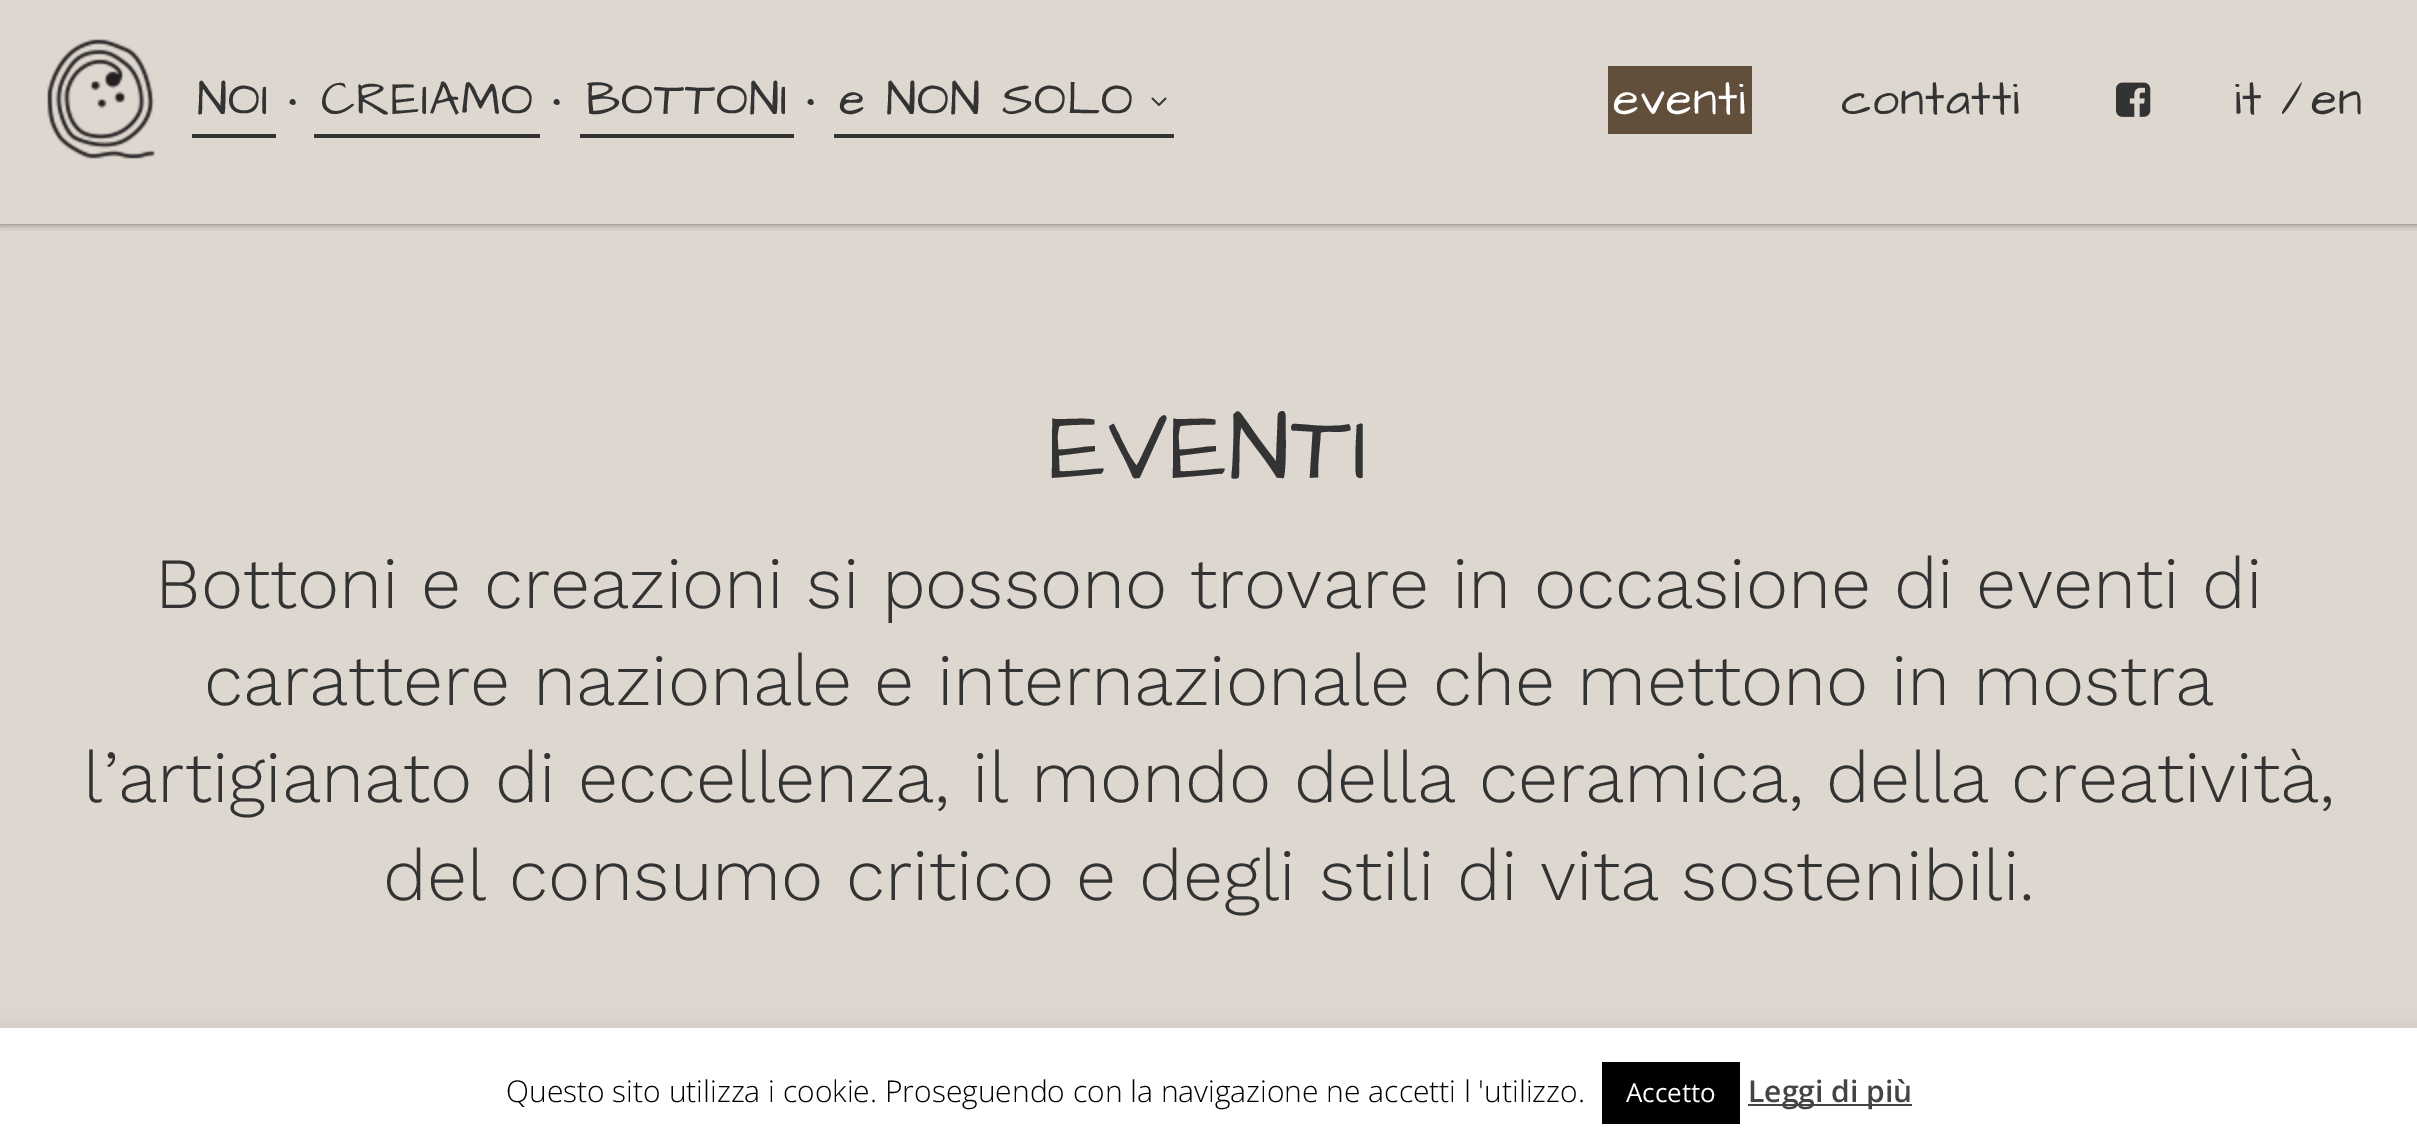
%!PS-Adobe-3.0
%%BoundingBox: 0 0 2417 1148
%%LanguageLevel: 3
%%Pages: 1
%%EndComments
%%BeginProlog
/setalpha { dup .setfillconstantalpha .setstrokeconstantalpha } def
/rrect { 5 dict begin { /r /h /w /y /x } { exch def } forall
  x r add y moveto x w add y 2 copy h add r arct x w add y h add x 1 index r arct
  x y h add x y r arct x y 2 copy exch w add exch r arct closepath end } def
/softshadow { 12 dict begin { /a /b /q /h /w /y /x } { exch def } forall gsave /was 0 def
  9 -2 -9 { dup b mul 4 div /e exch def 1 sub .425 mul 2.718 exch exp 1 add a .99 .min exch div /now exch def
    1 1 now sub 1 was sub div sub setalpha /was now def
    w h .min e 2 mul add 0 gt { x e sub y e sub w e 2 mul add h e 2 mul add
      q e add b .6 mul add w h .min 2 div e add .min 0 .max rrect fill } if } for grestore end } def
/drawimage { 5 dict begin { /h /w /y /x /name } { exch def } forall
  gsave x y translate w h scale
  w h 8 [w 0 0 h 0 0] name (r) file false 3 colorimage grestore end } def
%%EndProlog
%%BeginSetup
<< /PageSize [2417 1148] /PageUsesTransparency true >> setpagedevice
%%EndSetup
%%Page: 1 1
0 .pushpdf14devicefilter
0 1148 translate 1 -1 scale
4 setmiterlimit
0.871 0.843 0.812 setrgbcolor
0 0 2417 1148 rectfill
gsave
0 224 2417 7 rectclip
0 setgray
0 0 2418 224 0 4 0.5 softshadow
grestore
(images/1.raw) 47 39 108 120 drawimage
0.2 setgray
192 134 84 4 rectfill
314 134 226 4 rectfill
580 134 214 4 rectfill
834 134 340 4 rectfill
(images/2.raw) 1151 97 16 9 drawimage
0.38 0.31 0.235 setrgbcolor
1608 66 144 68 rectfill
(images/3.raw) 2116 82 35 35 drawimage
0.675 0.671 0.671 setrgbcolor
0 1026 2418 120 0 10 0.3 softshadow
1 setgray
0 1028 2417 120 rectfill
0 setgray
1602 1062 138 62 rectfill
0.267 setgray
1748 1104 164 2 rectfill
/ArchitectsDaughter-Regular [48 0 0 -48 0 0] selectfont
0.2 setgray
197 114 moveto 1 0 (NOI) ashow
288 114 moveto 10 0 (•) ashow
321 114 moveto 1 0 (CREIAMO) ashow
552 114 moveto 10 0 (•) ashow
586 114 moveto 1 0 (BOTTONI) ashow
806 114 moveto 10 0 (•) ashow
839 114 moveto 1 0 (e NON SOLO) ashow
1 setgray
1613 114 moveto 1 0 (eventi) ashow
0.2 setgray
1841 114 moveto 1 0 (contatti) ashow
2234 114 moveto 1 0 (it) ashow
2281 114 moveto (/) show
2311 114 moveto 1 0 (en) ashow
/ArchitectsDaughter-Regular [96 0 0 -96 0 0] selectfont
1049 478 moveto 2 0 (EVENTI) ashow
/WorkSans-Light [72 0 0 -72 0 0] selectfont
155 608 moveto (Bottoni e creazioni si possono trovare in occasione di eventi di) show
204 705 moveto (carattere nazionale e internazionale che mettono in mostra) show
83 802 moveto (l’artigianato di eccellenza, il mondo della ceramica, della creatività,) show
383 900 moveto (del consumo critico e degli stili di vita sostenibili.) show
/OpenSans-Light [30 0 0 -30 0 0] selectfont
0 setgray
506 1102 moveto (Questo sito utilizza i cookie. Proseguendo con la navigazione ne accetti l 'utilizzo.) show
/OpenSans-Regular [26 0 0 -26 0 0] selectfont
1 setgray
1626 1102 moveto (Accetto) show
/OpenSans-SemiBold [30 0 0 -30 0 0] selectfont
0.267 setgray
1748 1102 moveto (Leggi di più) show
.poppdf14devicefilter showpage
%%EOF
